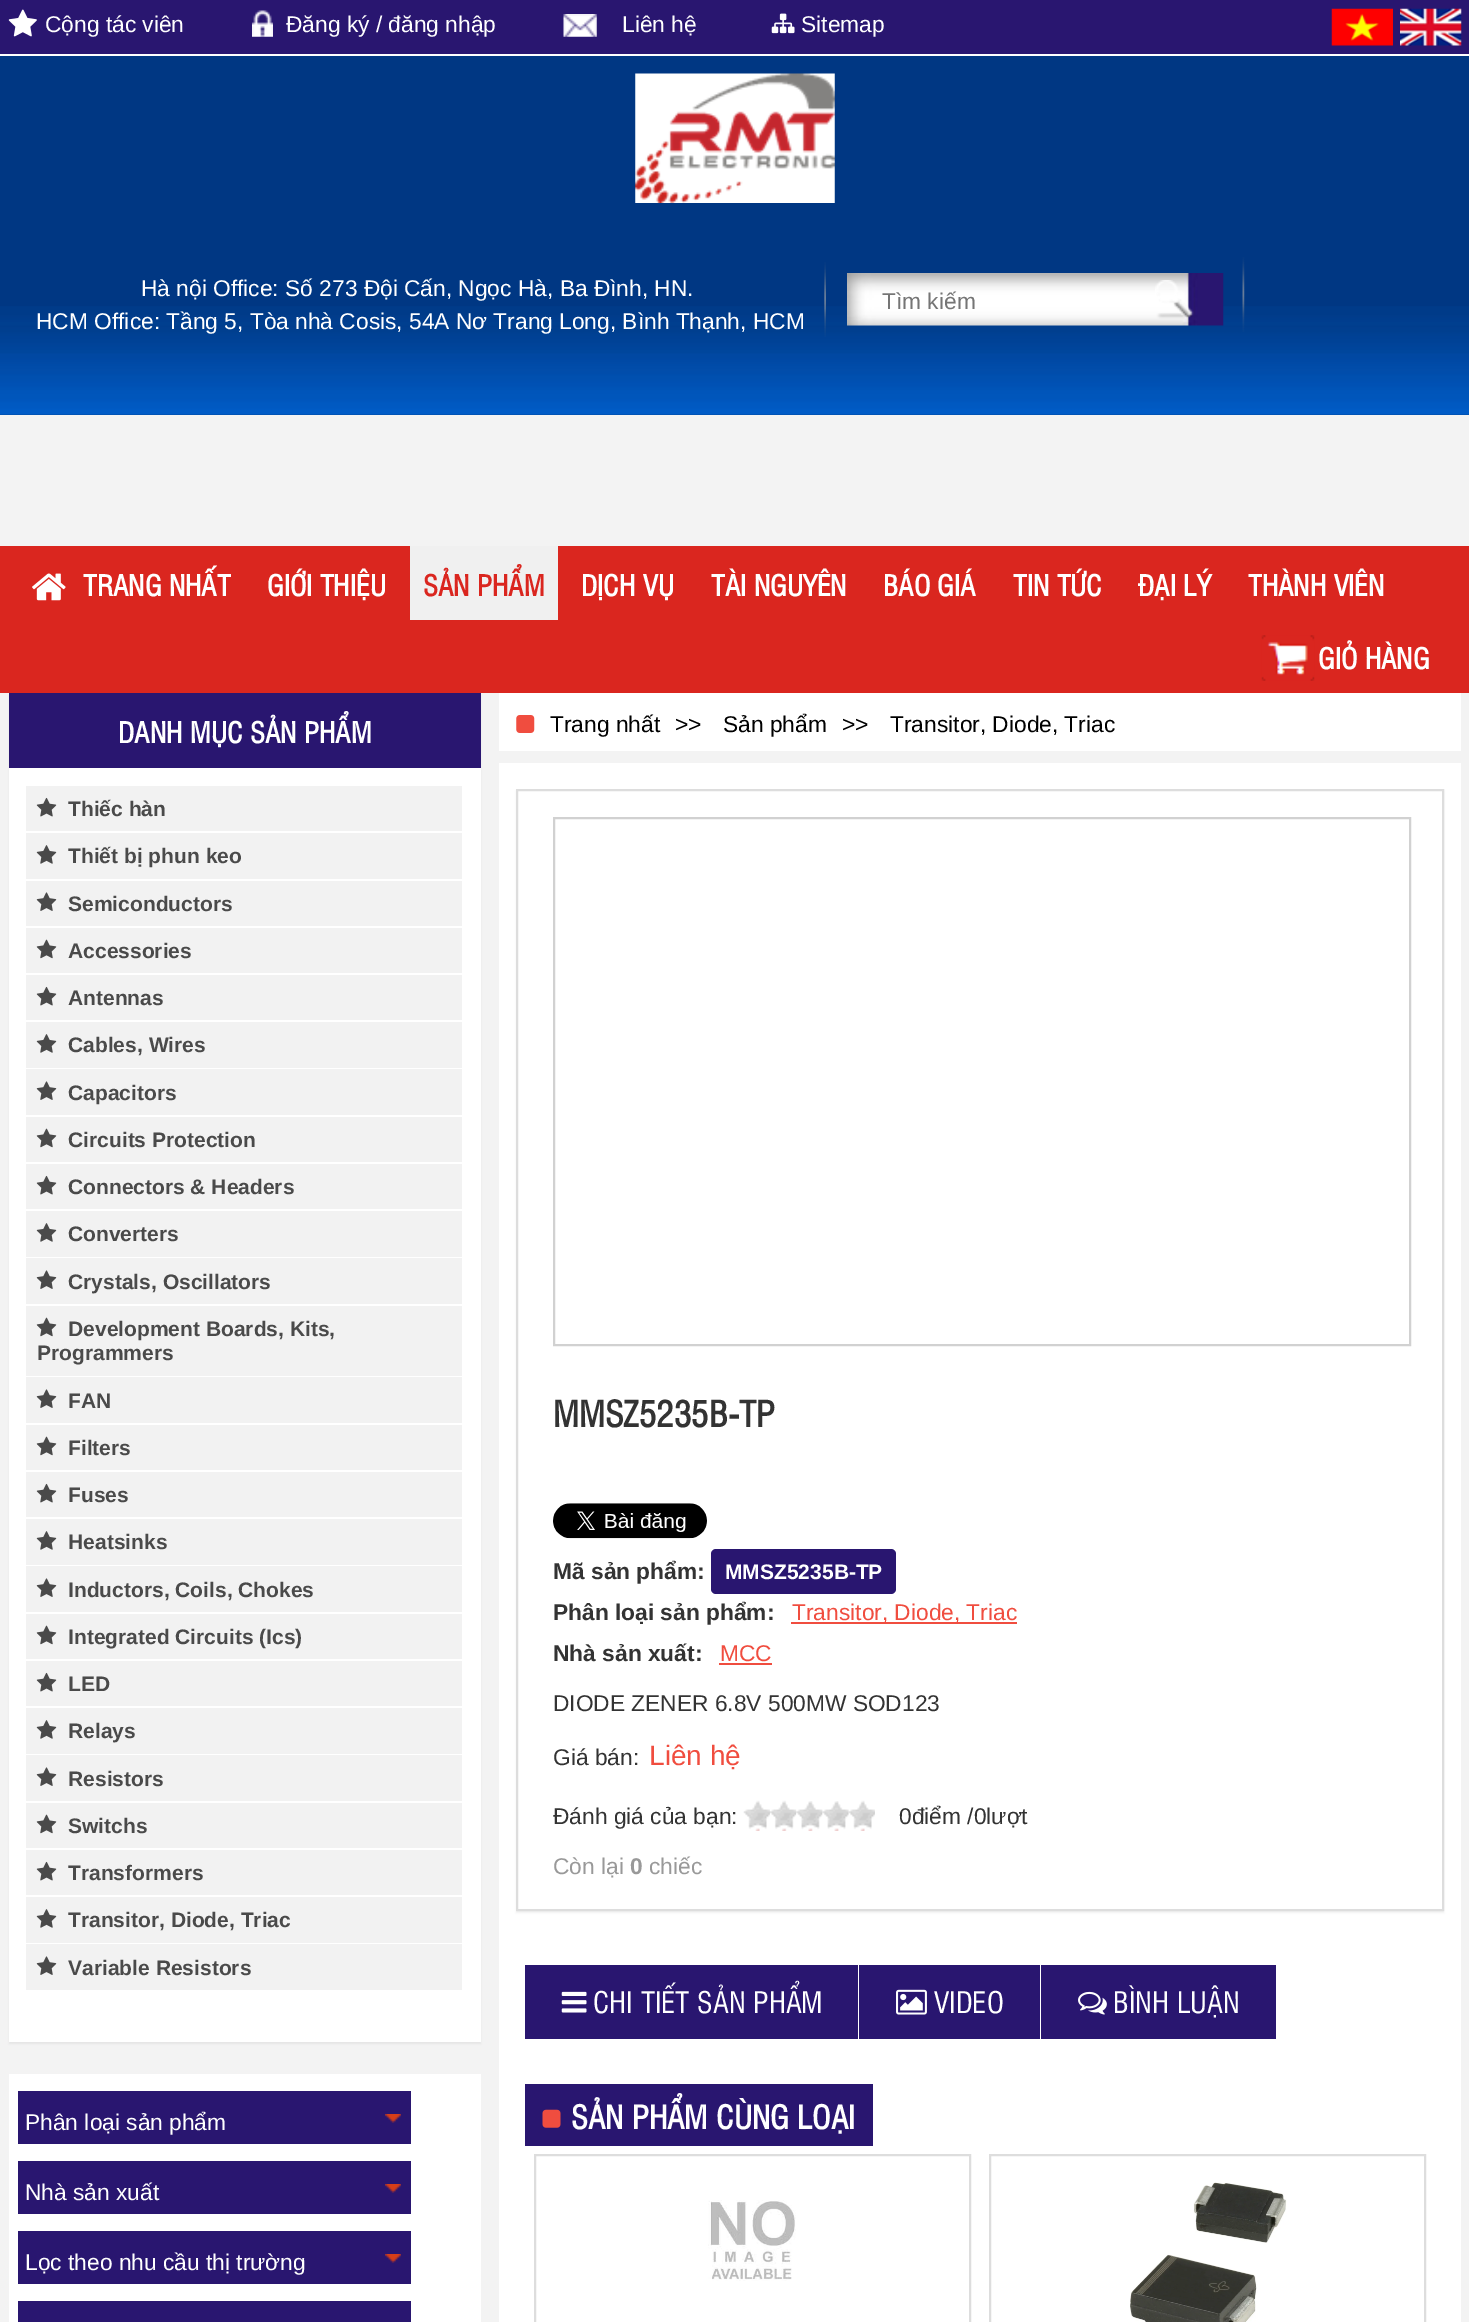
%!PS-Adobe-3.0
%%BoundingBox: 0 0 1469 2322
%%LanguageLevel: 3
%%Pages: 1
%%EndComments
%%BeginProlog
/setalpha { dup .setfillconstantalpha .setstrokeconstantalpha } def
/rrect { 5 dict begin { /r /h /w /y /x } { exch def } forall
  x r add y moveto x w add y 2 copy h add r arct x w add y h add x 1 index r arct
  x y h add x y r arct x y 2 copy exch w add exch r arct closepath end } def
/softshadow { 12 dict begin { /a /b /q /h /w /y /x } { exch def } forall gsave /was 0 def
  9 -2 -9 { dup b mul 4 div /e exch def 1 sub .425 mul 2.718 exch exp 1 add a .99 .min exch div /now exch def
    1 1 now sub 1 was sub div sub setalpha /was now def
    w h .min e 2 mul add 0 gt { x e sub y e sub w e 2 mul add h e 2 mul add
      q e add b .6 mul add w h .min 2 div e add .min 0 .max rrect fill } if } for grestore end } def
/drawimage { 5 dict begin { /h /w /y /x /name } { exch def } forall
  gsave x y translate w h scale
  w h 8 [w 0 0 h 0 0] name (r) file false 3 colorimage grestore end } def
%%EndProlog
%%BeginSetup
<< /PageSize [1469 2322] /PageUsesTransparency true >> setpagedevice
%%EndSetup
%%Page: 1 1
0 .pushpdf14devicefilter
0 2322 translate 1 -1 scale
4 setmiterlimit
0.953 setgray
0 0 1469 2322 rectfill
0.161 0.086 0.439 setrgbcolor
0 0 1469 54 rectfill
1 setgray
0 54 1469 2 rectfill
(images/1.raw) 8 9 29 28 drawimage
(images/2.raw) 252 10 21 27 drawimage
(images/3.raw) 563 14 34 23 drawimage
(images/4.raw) 771 13 24 21 drawimage
(images/5.raw) 1331 8 62 38 drawimage
(images/6.raw) 1400 8 62 38 drawimage
0 0.216 0.514 setrgbcolor
0 56 1469 359 rectfill
(images/7.raw) 0 306 1469 109 drawimage
(images/8.raw) 635 73 200 130 drawimage
(images/9.raw) 824 262 2 75 drawimage
(images/10.raw) 1242 257 3 75 drawimage
(images/11.raw) 847 273 377 53 drawimage
(images/12.raw) 1155 280 39 39 drawimage
0.855 0.149 0.122 setrgbcolor
0 546 1469 147 rectfill
(images/13.raw) 32 573 34 28 drawimage
0.941 setgray
410 546 148 74 rectfill
(images/14.raw) 1261 635 54 46 drawimage
0 setgray
9 695 472 1349 0 1 0.05 softshadow
1 setgray
9 768 472 1274 rectfill
0.161 0.086 0.439 setrgbcolor
9 693 472 75 rectfill
0.949 setgray
26 786 436 45 rectfill
(images/15.raw) 36 797 21 20 drawimage
26 833 436 46 rectfill
(images/16.raw) 36 845 21 19 drawimage
26 881 436 45 rectfill
(images/17.raw) 36 892 21 19 drawimage
26 928 436 45 rectfill
(images/18.raw) 36 939 21 20 drawimage
26 975 436 45 rectfill
(images/15.raw) 36 986 21 20 drawimage
26 1022 436 46 rectfill
(images/16.raw) 36 1034 21 19 drawimage
26 1069 436 46 rectfill
(images/17.raw) 36 1081 21 19 drawimage
26 1117 436 45 rectfill
(images/18.raw) 36 1128 21 20 drawimage
26 1164 436 45 rectfill
(images/15.raw) 36 1175 21 20 drawimage
26 1211 436 46 rectfill
(images/16.raw) 36 1223 21 19 drawimage
26 1258 436 46 rectfill
(images/17.raw) 36 1270 21 19 drawimage
26 1306 436 70 rectfill
(images/18.raw) 36 1317 21 20 drawimage
26 1377 436 46 rectfill
(images/17.raw) 36 1389 21 19 drawimage
26 1425 436 45 rectfill
(images/18.raw) 36 1436 21 20 drawimage
26 1472 436 45 rectfill
(images/15.raw) 36 1483 21 20 drawimage
26 1519 436 46 rectfill
(images/16.raw) 36 1531 21 19 drawimage
26 1566 436 46 rectfill
(images/17.raw) 36 1578 21 19 drawimage
26 1614 436 45 rectfill
(images/18.raw) 36 1625 21 20 drawimage
26 1661 436 45 rectfill
(images/15.raw) 36 1672 21 20 drawimage
26 1708 436 46 rectfill
(images/16.raw) 36 1720 21 19 drawimage
26 1755 436 46 rectfill
(images/17.raw) 36 1767 21 19 drawimage
26 1803 436 45 rectfill
(images/18.raw) 36 1814 21 20 drawimage
26 1850 436 45 rectfill
(images/15.raw) 36 1861 21 20 drawimage
26 1897 436 46 rectfill
(images/16.raw) 36 1909 21 19 drawimage
26 1944 436 46 rectfill
(images/17.raw) 36 1956 21 19 drawimage
1 setgray
9 2074 472 248 rectfill
0.161 0.086 0.439 setrgbcolor
18 2091 393 53 rectfill
(images/19.raw) 385 2114 16 9 drawimage
18 2161 393 53 rectfill
(images/19.raw) 385 2184 16 9 drawimage
18 2231 393 53 rectfill
(images/19.raw) 385 2254 16 9 drawimage
18 2301 393 21 rectfill
1 setgray
499 693 962 58 rectfill
(images/20.raw) 516 715 19 18 drawimage
499 763 962 1559 rectfill
0 setgray
516 791 928 1122 0 1 0.05 softshadow
1 setgray
newpath 517 790 moveto 1443 790 lineto 1443 1910 lineto 517 1910 lineto closepath gsave fill grestore
0.867 setgray
2 setlinewidth
stroke
0.82 setgray
554 818 856 527 rectstroke
(images/21.raw) 553 1503 154 36 drawimage
0.161 0.086 0.439 setrgbcolor
711 1549 185 45 5 rrect fill
0.941 0.302 0.247 setrgbcolor
791 1622 226 2 rectfill
719 1663 53 2 rectfill
(images/22.raw) 743 1800 27 31 drawimage
(images/23.raw) 770 1800 27 31 drawimage
(images/24.raw) 796 1801 27 30 drawimage
(images/25.raw) 822 1801 27 30 drawimage
(images/26.raw) 849 1800 26 31 drawimage
0.161 0.086 0.439 setrgbcolor
525 1965 333 74 rectfill
(images/27.raw) 561 1991 26 22 drawimage
859 1965 181 74 rectfill
(images/28.raw) 896 1989 31 26 drawimage
1041 1965 235 74 rectfill
(images/29.raw) 1078 1991 29 24 drawimage
525 2084 348 62 rectfill
(images/30.raw) 542 2109 19 19 drawimage
0.867 setgray
535 2155 435 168 rectstroke
(images/31.raw) 708 2200 88 81 drawimage
990 2155 435 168 rectstroke
(images/32.raw) 1130 2182 157 140 drawimage
/LiberationSans-Regular [22.75 0 0 -22.75 0 0] selectfont
1 setgray
45 32 moveto (Cộng tác viên) show
286 32 moveto (Đăng ký / đăng nhập) show
622 32 moveto (Liên hệ) show
801 32 moveto (Sitemap) show
141 296 moveto (Hà nội Office: Số 273 Đội Cấn, Ngọc Hà, Ba Đình, HN.) show
36 329 moveto (HCM Office: Tầng 5, Tòa nhà Cosis, 54A Nơ Trang Long, Bình Thạnh, HCM) show
0.459 setgray
882 309 moveto (Tìm kiếm) show
/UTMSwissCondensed-Bold [28 0 0 -28 0 0] selectfont
1 setgray
83 596 moveto (TRANG NHẤT) show
267 596 moveto (GIỚI THIỆU) show
0.855 0.149 0.122 setrgbcolor
423 596 moveto (SẢN PHẨM) show
1 setgray
581 596 moveto (DỊCH VỤ) show
711 596 moveto (TÀI NGUYÊN) show
883 596 moveto (BÁO GIÁ) show
1013 596 moveto (TIN TỨC) show
1138 596 moveto (ĐẠI LÝ) show
1248 596 moveto (THÀNH VIÊN) show
1318 669 moveto (GIỎ HÀNG) show
118 743 moveto (DANH MỤC SẢN PHẨM) show
/LiberationSans-Bold [21 0 0 -21 0 0] selectfont
0.29 setgray
68 816 moveto (Thiếc hàn) show
68 863 moveto (Thiết bị phun keo) show
68 911 moveto (Semiconductors) show
68 958 moveto (Accessories) show
68 1005 moveto (Antennas) show
68 1052 moveto (Cables, Wires) show
68 1100 moveto (Capacitors) show
68 1147 moveto (Circuits Protection) show
68 1194 moveto (Connectors & Headers) show
68 1241 moveto (Converters) show
68 1289 moveto (Crystals, Oscillators) show
68 1336 moveto (Development Boards, Kits,) show
37 1360 moveto (Programmers) show
68 1408 moveto (FAN) show
68 1455 moveto (Filters) show
68 1502 moveto (Fuses) show
68 1549 moveto (Heatsinks) show
68 1597 moveto (Inductors, Coils, Chokes) show
68 1644 moveto (Integrated Circuits \(Ics\)) show
68 1691 moveto (LED) show
68 1738 moveto (Relays) show
68 1786 moveto (Resistors) show
68 1833 moveto (Switchs) show
68 1880 moveto (Transformers) show
68 1927 moveto (Transitor, Diode, Triac) show
68 1975 moveto (Variable Resistors) show
/LiberationSans-Regular [22.75 0 0 -22.75 0 0] selectfont
1 setgray
25 2130 moveto (Phân loại sản phẩm) show
25 2200 moveto (Nhà sản xuất) show
25 2270 moveto (Lọc theo nhu cầu thị trường) show
0 setgray
550 732 moveto (Trang nhất) show
675 732 moveto (>>) show
723 732 moveto (Sản phẩm) show
842 732 moveto (>>) show
890 732 moveto (Transitor, Diode, Triac) show
/UTMSwissCondensed-Bold [35 0 0 -35 0 0] selectfont
0.2 setgray
553 1427 moveto (MMSZ5235B-TP) show
/LiberationSans-Bold [22.75 0 0 -22.75 0 0] selectfont
553 1579 moveto (Mã sản phẩm:) show
/LiberationSans-Bold [21 0 0 -21 0 0] selectfont
1 setgray
725 1579 moveto (MMSZ5235B-TP) show
/LiberationSans-Bold [22.75 0 0 -22.75 0 0] selectfont
0.2 setgray
553 1620 moveto (Phân loại sản phẩm:) show
/LiberationSans-Regular [22.75 0 0 -22.75 0 0] selectfont
0.941 0.302 0.247 setrgbcolor
792 1620 moveto (Transitor, Diode, Triac) show
/LiberationSans-Bold [22.75 0 0 -22.75 0 0] selectfont
0.2 setgray
553 1661 moveto (Nhà sản xuất:) show
/LiberationSans-Regular [22.75 0 0 -22.75 0 0] selectfont
0.941 0.302 0.247 setrgbcolor
720 1661 moveto (MCC) show
0.2 setgray
553 1711 moveto (DIODE ZENER 6.8V 500MW SOD123) show
553 1765 moveto (Giá bán:) show
/LiberationSans-Regular [28 0 0 -28 0 0] selectfont
0.941 0.302 0.247 setrgbcolor
649 1765 moveto (Liên hệ) show
/LiberationSans-Regular [22.75 0 0 -22.75 0 0] selectfont
0.2 setgray
553 1824 moveto (Đánh giá của bạn:) show
899 1824 moveto (0điểm /0lượt) show
0.6 setgray
553 1874 moveto (Còn lại) show
/LiberationSans-Bold [22.75 0 0 -22.75 0 0] selectfont
630 1874 moveto (0) show
/LiberationSans-Regular [22.75 0 0 -22.75 0 0] selectfont
649 1874 moveto (chiếc) show
/UTMSwissCondensed-Regular [29 0 0 -29 0 0] selectfont
1 setgray
593 2013 moveto (CHI TIẾT SẢN PHẨM) show
934 2013 moveto (VIDEO) show
1113 2013 moveto (BÌNH LUẬN) show
/UTMSwissCondensed-Bold [31.5 0 0 -31.5 0 0] selectfont
571 2129 moveto (SẢN PHẨM CÙNG LOẠI) show
.poppdf14devicefilter showpage
%%EOF
